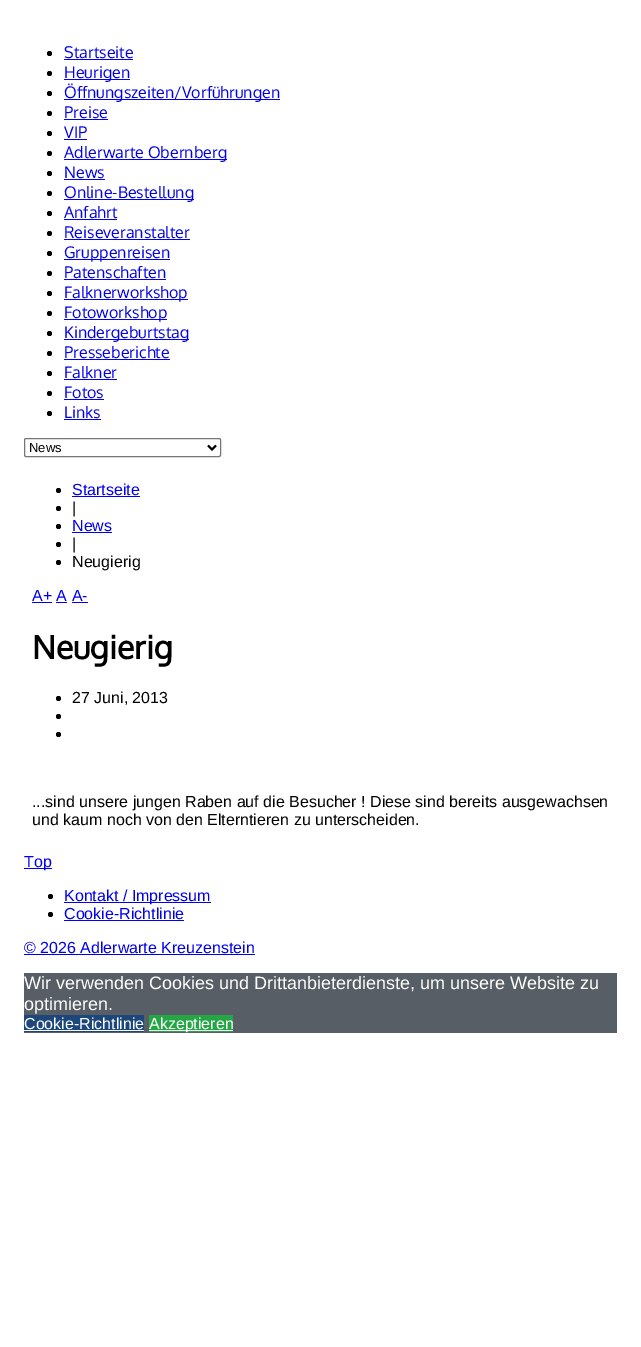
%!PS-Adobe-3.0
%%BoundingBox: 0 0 641 1347
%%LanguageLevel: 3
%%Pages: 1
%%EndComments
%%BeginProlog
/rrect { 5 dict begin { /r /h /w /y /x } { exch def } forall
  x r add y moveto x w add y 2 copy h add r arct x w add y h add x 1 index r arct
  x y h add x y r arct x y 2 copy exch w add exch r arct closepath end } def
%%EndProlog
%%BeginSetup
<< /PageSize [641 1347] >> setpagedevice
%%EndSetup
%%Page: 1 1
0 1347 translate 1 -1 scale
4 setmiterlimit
1 setgray
0 0 641 1347 rectfill
0 setgray
newpath 49.5 53.5 2.5 0 360 arc closepath fill
0 0 0.933 setrgbcolor
64 59 69 1 rectfill
0 setgray
newpath 49.5 73.5 2.5 0 360 arc closepath fill
0 0 0.933 setrgbcolor
64 79 66 1 rectfill
0 setgray
newpath 49.5 93.5 2.5 0 360 arc closepath fill
0 0 0.933 setrgbcolor
64 99 216 1 rectfill
0 setgray
newpath 49.5 113.5 2.5 0 360 arc closepath fill
0 0 0.933 setrgbcolor
64 119 44 1 rectfill
0 setgray
newpath 49.5 133.5 2.5 0 360 arc closepath fill
0 0 0.933 setrgbcolor
64 139 23 1 rectfill
0 setgray
newpath 49.5 153.5 2.5 0 360 arc closepath fill
0 0 0.933 setrgbcolor
64 159 163 1 rectfill
0 setgray
newpath 49.5 173.5 2.5 0 360 arc closepath fill
0 0 0.933 setrgbcolor
64 179 41 1 rectfill
0 setgray
newpath 49.5 193.5 2.5 0 360 arc closepath fill
0 0 0.933 setrgbcolor
64 199 130 1 rectfill
0 setgray
newpath 49.5 213.5 2.5 0 360 arc closepath fill
0 0 0.933 setrgbcolor
64 219 53 1 rectfill
0 setgray
newpath 49.5 233.5 2.5 0 360 arc closepath fill
0 0 0.933 setrgbcolor
64 239 126 1 rectfill
0 setgray
newpath 49.5 253.5 2.5 0 360 arc closepath fill
0 0 0.933 setrgbcolor
64 259 106 1 rectfill
0 setgray
newpath 49.5 273.5 2.5 0 360 arc closepath fill
0 0 0.933 setrgbcolor
64 279 102 1 rectfill
0 setgray
newpath 49.5 293.5 2.5 0 360 arc closepath fill
0 0 0.933 setrgbcolor
64 299 124 1 rectfill
0 setgray
newpath 49.5 313.5 2.5 0 360 arc closepath fill
0 0 0.933 setrgbcolor
64 319 103 1 rectfill
0 setgray
newpath 49.5 333.5 2.5 0 360 arc closepath fill
0 0 0.933 setrgbcolor
64 339 125 1 rectfill
0 setgray
newpath 49.5 353.5 2.5 0 360 arc closepath fill
0 0 0.933 setrgbcolor
64 359 106 1 rectfill
0 setgray
newpath 49.5 373.5 2.5 0 360 arc closepath fill
0 0 0.933 setrgbcolor
64 379 53 1 rectfill
0 setgray
newpath 49.5 393.5 2.5 0 360 arc closepath fill
0 0 0.933 setrgbcolor
64 399 40 1 rectfill
0 setgray
newpath 49.5 413.5 2.5 0 360 arc closepath fill
0 0 0.933 setrgbcolor
64 419 37 1 rectfill
0.463 setgray
24.5 438.5 196 18 1.5 rrect stroke
0 setgray
2 setlinewidth
newpath 208 445.5 moveto 212 449.5 lineto 216 445.5 lineto stroke
newpath 58.5 490.5 2.5 0 360 arc closepath fill
0 0 0.933 setrgbcolor
72 496 68 1 rectfill
0 setgray
newpath 58.5 508.5 2.5 0 360 arc closepath fill
newpath 58.5 526.5 2.5 0 360 arc closepath fill
0 0 0.933 setrgbcolor
72 532 40 1 rectfill
0 setgray
newpath 58.5 544.5 2.5 0 360 arc closepath fill
newpath 58.5 562.5 2.5 0 360 arc closepath fill
0 0 0.933 setrgbcolor
32 602 20 1 rectfill
56 602 11 1 rectfill
72 602 16 1 rectfill
0 setgray
newpath 58.5 698.5 2.5 0 360 arc closepath fill
newpath 58.5 716.5 2.5 0 360 arc closepath fill
newpath 58.5 734.5 2.5 0 360 arc closepath fill
0 0 0.933 setrgbcolor
24 868 28 1 rectfill
0 setgray
newpath 50.5 896.5 2.5 0 360 arc closepath fill
0 0 0.933 setrgbcolor
64 902 147 1 rectfill
0 setgray
newpath 50.5 914.5 2.5 0 360 arc closepath fill
0 0 0.933 setrgbcolor
64 920 120 1 rectfill
24 954 231 1 rectfill
0.341 0.369 0.4 setrgbcolor
24 973 593 60 rectfill
0.114 0.275 0.478 setrgbcolor
24 1015 120 17 rectfill
1 setgray
24 1030 120 1 rectfill
0.141 0.651 0.271 setrgbcolor
149 1015 84 17 rectfill
1 setgray
149 1030 84 1 rectfill
/Oxygen-Regular [16 0 0 -16 0 0] selectfont
0 0 0.933 setrgbcolor
64 58 moveto (Startseite) show
64 78 moveto (Heurigen) show
64 98 moveto (Öffnungszeiten/Vorführungen) show
64 118 moveto (Preise) show
64 138 moveto (VIP) show
64 158 moveto (Adlerwarte Obernberg) show
64 178 moveto (News) show
64 198 moveto (Online-Bestellung) show
64 218 moveto (Anfahrt) show
64 238 moveto (Reiseveranstalter) show
64 258 moveto (Gruppenreisen) show
64 278 moveto (Patenschaften) show
64 298 moveto (Falknerworkshop) show
64 318 moveto (Fotoworkshop) show
64 338 moveto (Kindergeburtstag) show
64 358 moveto (Presseberichte) show
64 378 moveto (Falkner) show
64 398 moveto (Fotos) show
64 418 moveto (Links) show
/LiberationSans-Regular [13 0 0 -13 0 0] selectfont
0 setgray
29 452 moveto (News) show
/LiberationSans-Regular [16 0 0 -16 0 0] selectfont
0 0 0.933 setrgbcolor
72 495 moveto (Startseite) show
0 setgray
72 513 moveto (|) show
0 0 0.933 setrgbcolor
72 531 moveto (News) show
0 setgray
72 549 moveto (|) show
72 567 moveto (Neugierig) show
0 0 0.933 setrgbcolor
32 601 moveto (A+ A A-) show
/Oxygen-Bold [32 0 0 -32 0 0] selectfont
0 setgray
32 659 moveto (Neugierig) show
/LiberationSans-Regular [16 0 0 -16 0 0] selectfont
72 703 moveto (27 Juni, 2013) show
32 807 moveto (...sind unsere jungen Raben auf die Besucher ! Diese sind bereits ausgewachsen) show
32 825 moveto (und kaum noch von den Elterntieren zu unterscheiden.) show
0 0 0.933 setrgbcolor
24 867 moveto (Top) show
64 901 moveto (Kontakt / Impressum) show
64 919 moveto (Cookie-Richtlinie) show
24 953 moveto (© 2026 Adlerwarte Kreuzenstein) show
/LiberationSans-Regular [18 0 0 -18 0 0] selectfont
1 setgray
24 989 moveto (Wir verwenden Cookies und Drittanbieterdienste, um unsere Website zu) show
24 1010 moveto (optimieren.) show
/LiberationSans-Regular [16 0 0 -16 0 0] selectfont
24 1029 moveto (Cookie-Richtlinie) show
149 1029 moveto (Akzeptieren) show
showpage
%%EOF
